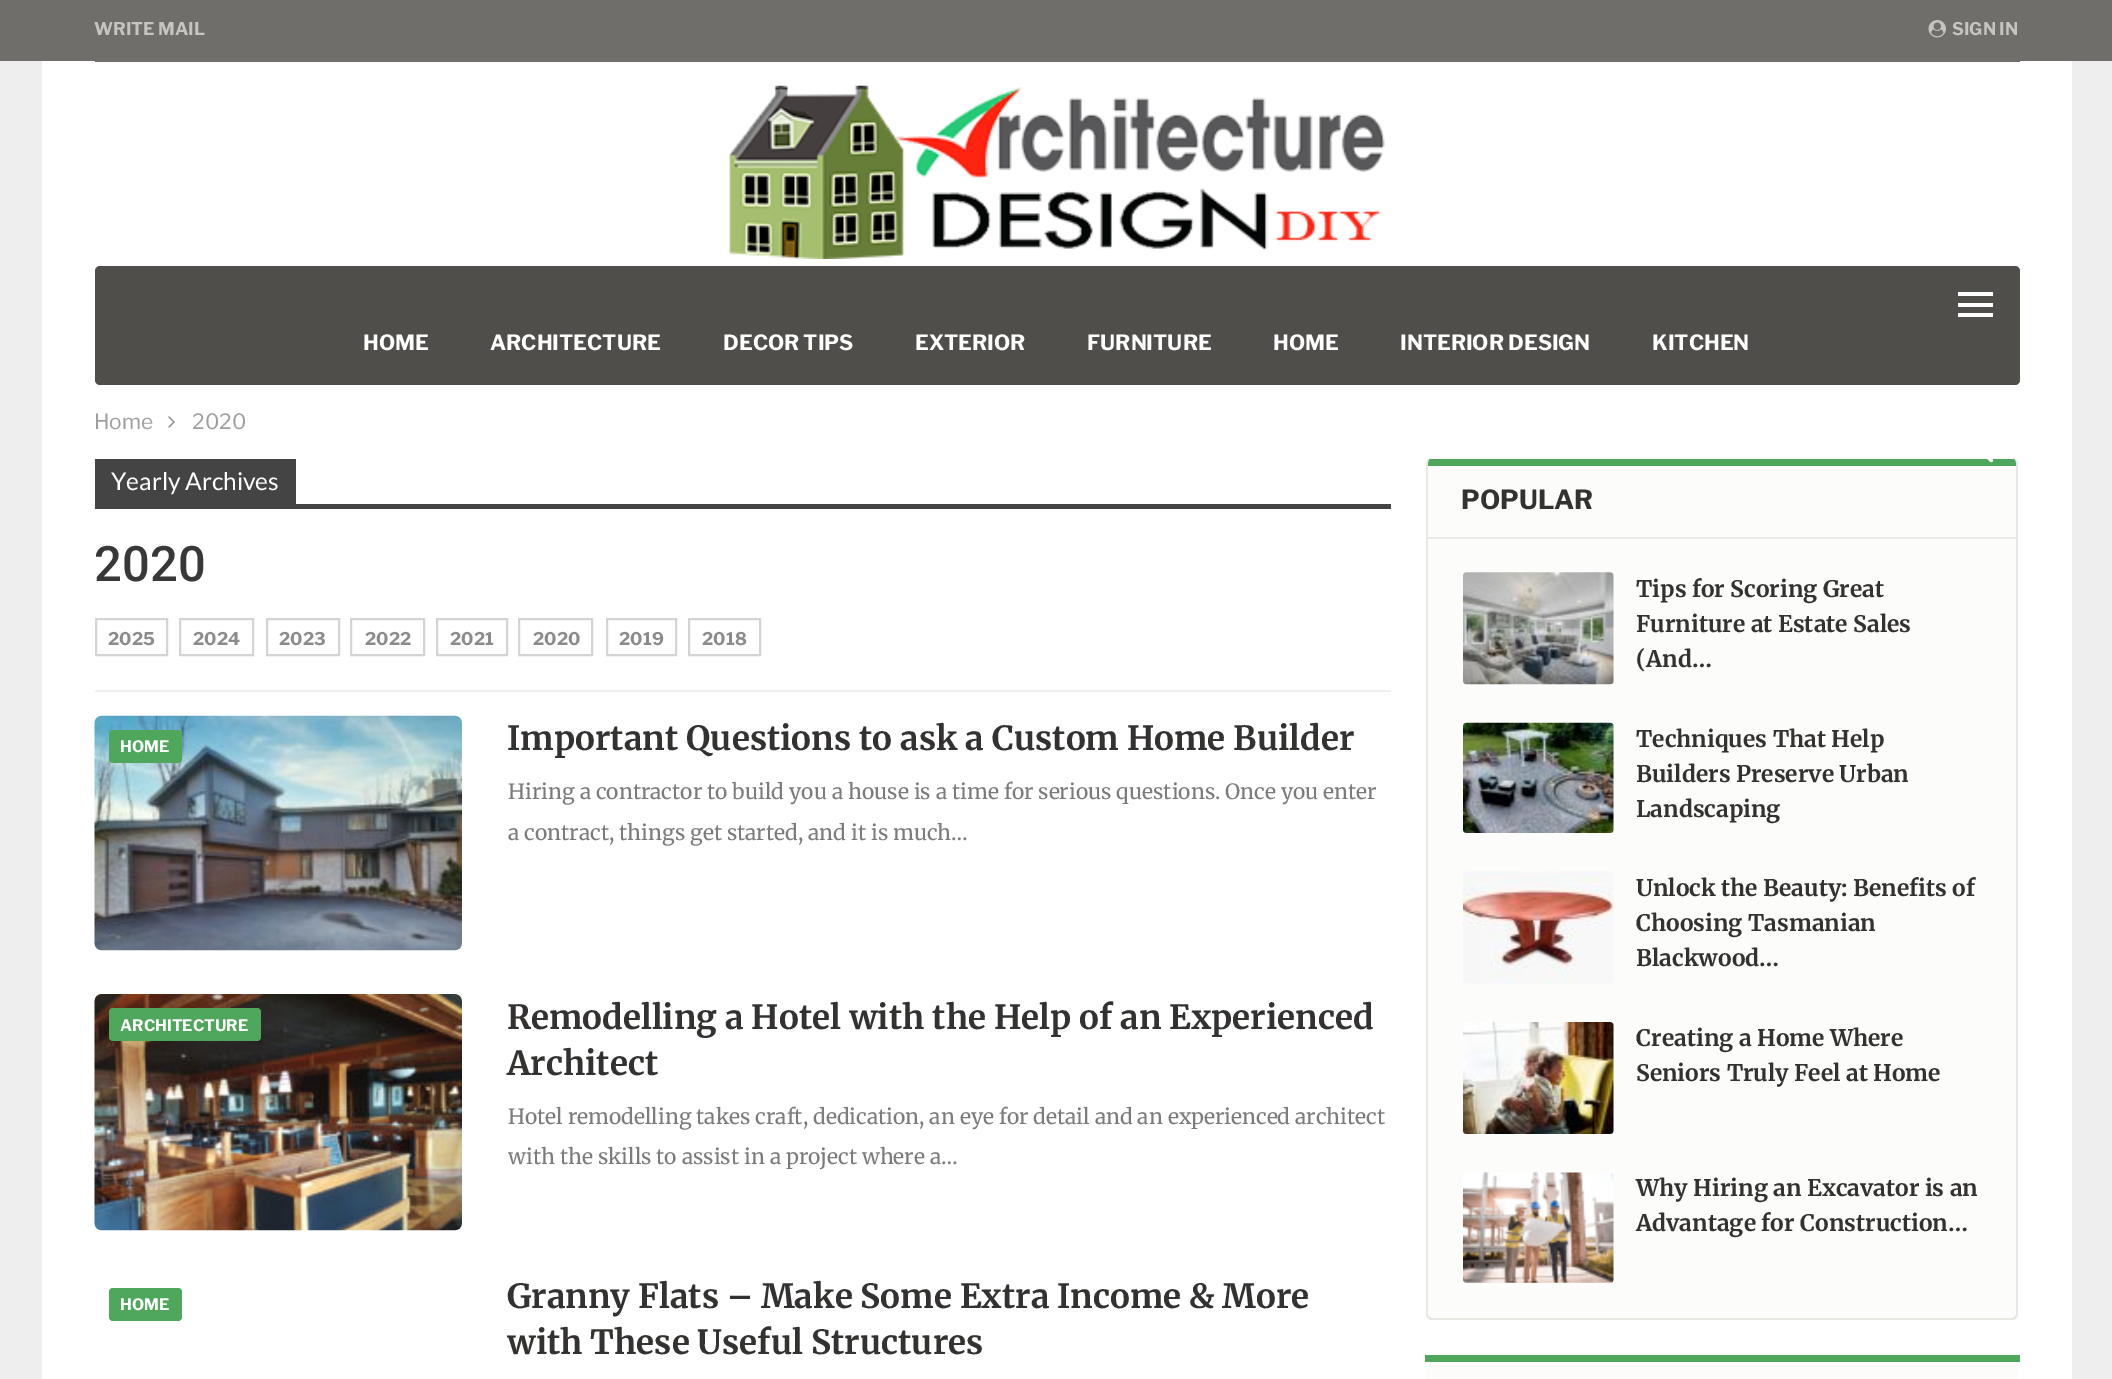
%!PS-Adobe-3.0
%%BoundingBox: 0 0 2112 1379
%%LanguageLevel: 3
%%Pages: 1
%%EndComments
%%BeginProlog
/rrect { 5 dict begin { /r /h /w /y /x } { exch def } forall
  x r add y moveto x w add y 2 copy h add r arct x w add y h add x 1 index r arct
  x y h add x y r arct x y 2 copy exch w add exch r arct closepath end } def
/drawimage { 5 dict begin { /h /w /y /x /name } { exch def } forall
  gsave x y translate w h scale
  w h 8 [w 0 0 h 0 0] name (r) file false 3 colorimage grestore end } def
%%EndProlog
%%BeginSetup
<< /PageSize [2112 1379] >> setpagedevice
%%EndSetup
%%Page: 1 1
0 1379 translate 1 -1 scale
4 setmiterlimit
0.933 setgray
0 0 2112 1379 rectfill
0.439 0.431 0.42 setrgbcolor
0 0 2112 61 rectfill
1 setgray
42 61 2030 1318 rectfill
0.439 0.431 0.42 setrgbcolor
95 61 1925 1 rectfill
(images/1.raw) 1928 20 18 18 drawimage
(images/2.raw) 729 85 656 174 drawimage
0.314 0.306 0.294 setrgbcolor
95 266 1925 119 5 rrect fill
1 setgray
1958 303 35 4 rectfill
1958 292 35 4 rectfill
1958 313 35 4 rectfill
0.988 0.988 0.98 setrgbcolor
1426 459 592 861 5 rrect fill
0.918 0.91 0.89 setrgbcolor
newpath 1432 458 moveto 2012 458 lineto 2015 458 2018 461 2018 464 curveto 2018 1314 lineto 2018 1317 2015 1320 2012 1320 curveto 1432 1320 lineto 1429 1320 1426 1317 1426 1314 curveto 1426 464 lineto 1426 461 1429 458 1432 458 curveto closepath 1432 458 moveto 2012 458 lineto 2014 458 2016 461 2016 464 curveto 2016 1314 lineto 2016 1316 2014 1318 2012 1318 curveto 1432 1318 lineto 1430 1318 1428 1316 1428 1314 curveto 1428 464 lineto 1428 461 1430 458 1432 458 curveto closepath eofill
0.31 0.655 0.357 setrgbcolor
newpath 1428 466 moveto 1428 464 1428 461 1430 459 curveto 2014 459 lineto 2016 461 2016 464 2016 466 curveto closepath fill
(images/3.raw) 1987 459 7 4 drawimage
(images/4.raw) 168 416 7 12 drawimage
0.941 setgray
95 690 1296 2 rectfill
0.267 setgray
95 459 201 45 rectfill
95 504 1296 5 rectfill
0.831 setgray
2 setlinewidth
96 619 71 36 rectstroke
180 619 73 36 rectstroke
267 619 72 36 rectstroke
351 619 73 36 rectstroke
437 619 70 36 rectstroke
519 619 73 36 rectstroke
607 619 69 36 rectstroke
689 619 71 36 rectstroke
(images/5.raw) 94 715 368 236 drawimage
0.31 0.655 0.357 setrgbcolor
109 730 73 33 4 rrect fill
(images/6.raw) 94 994 368 237 drawimage
109 1008 152 33 4 rrect fill
109 1288 73 33 4 rrect fill
0.918 0.918 0.914 setrgbcolor
1428 537 588 2 rectfill
(images/7.raw) 1463 572 151 113 drawimage
(images/8.raw) 1462 722 152 111 drawimage
(images/9.raw) 1463 871 151 113 drawimage
(images/10.raw) 1463 1022 151 112 drawimage
(images/11.raw) 1463 1172 151 111 drawimage
0.988 0.988 0.98 setrgbcolor
1426 1362 592 17 rectfill
0.31 0.655 0.357 setrgbcolor
1425 1355 595 7 rectfill
/LibreFranklin-Bold [17.5 0 0 -17.5 0 0] selectfont
0.776 0.769 0.757 setrgbcolor
94 35 moveto (WRITE MAIL) show
1952 35 moveto (SIGN IN) show
/LibreFranklin-Bold [21 0 0 -21 0 0] selectfont
1 setgray
363 350 moveto (HOME) show
490 350 moveto (ARCHITECTURE) show
723 350 moveto (DECOR TIPS) show
915 350 moveto (EXTERIOR) show
1087 350 moveto (FURNITURE) show
1273 350 moveto (HOME) show
1400 350 moveto (INTERIOR DESIGN) show
1652 350 moveto (KITCHEN) show
/LibreFranklin-Regular [21 0 0 -21 0 0] selectfont
0.62 setgray
94 429 moveto (Home) show
192 429 moveto (2020) show
/Lato-Regular [24.5 0 0 -24.5 0 0] selectfont
1 setgray
111 490 moveto (Yearly Archives) show
/Roboto-Medium [49 0 0 -49 0 0] selectfont
0.22 setgray
94 581 moveto (2020) show
/LibreFranklin-Bold [17.5 0 0 -17.5 0 0] selectfont
0.545 setgray
108 645 moveto (2025) show
193 645 moveto (2024) show
279 645 moveto (2023) show
365 645 moveto (2022) show
450 645 moveto (2021) show
533 645 moveto (2020) show
619 645 moveto (2019) show
702 645 moveto (2018) show
/LibreFranklin-Bold [15.75 0 0 -15.75 0 0] selectfont
1 setgray
120 752 moveto (HOME) show
/Merriweather-Bold [33.25 0 0 -33.25 0 0] selectfont
0.2 0.196 0.188 setrgbcolor
507 750 moveto (Important Questions to ask a Custom Home Builder) show
/Merriweather-Regular [21 0 0 -21 0 0] selectfont
0.482 setgray
508 799 moveto (Hiring a contractor to build you a house is a time for serious questions. Once you enter) show
508 840 moveto (a contract, things get started, and it is much…) show
/LibreFranklin-Bold [15.75 0 0 -15.75 0 0] selectfont
1 setgray
120 1031 moveto (ARCHITECTURE) show
/Merriweather-Bold [33.25 0 0 -33.25 0 0] selectfont
0.2 0.196 0.188 setrgbcolor
507 1029 moveto (Remodelling a Hotel with the Help of an Experienced) show
507 1075 moveto (Architect) show
/Merriweather-Regular [21 0 0 -21 0 0] selectfont
0.482 setgray
508 1124 moveto (Hotel remodelling takes craft, dedication, an eye for detail and an experienced architect) show
508 1164 moveto (with the skills to assist in a project where a…) show
/LibreFranklin-Bold [15.75 0 0 -15.75 0 0] selectfont
1 setgray
120 1310 moveto (HOME) show
/Merriweather-Bold [33.25 0 0 -33.25 0 0] selectfont
0.2 0.196 0.188 setrgbcolor
507 1308 moveto (Granny Flats – Make Some Extra Income & More) show
507 1354 moveto (with These Useful Structures) show
/LibreFranklin-Bold [26.25 0 0 -26.25 0 0] selectfont
1461 509 moveto (POPULAR) show
/Merriweather-Bold [22.75 0 0 -22.75 0 0] selectfont
1636 597 moveto (Tips for Scoring Great) show
1636 632 moveto (Furniture at Estate Sales) show
1636 667 moveto (\(And…) show
1636 747 moveto (Techniques That Help) show
1636 782 moveto (Builders Preserve Urban) show
1636 817 moveto (Landscaping) show
1636 896 moveto (Unlock the Beauty: Benefits of) show
1636 931 moveto (Choosing Tasmanian) show
1636 966 moveto (Blackwood…) show
1636 1046 moveto (Creating a Home Where) show
1636 1081 moveto (Seniors Truly Feel at Home) show
1636 1196 moveto (Why Hiring an Excavator is an) show
1636 1231 moveto (Advantage for Construction…) show
showpage
%%EOF
